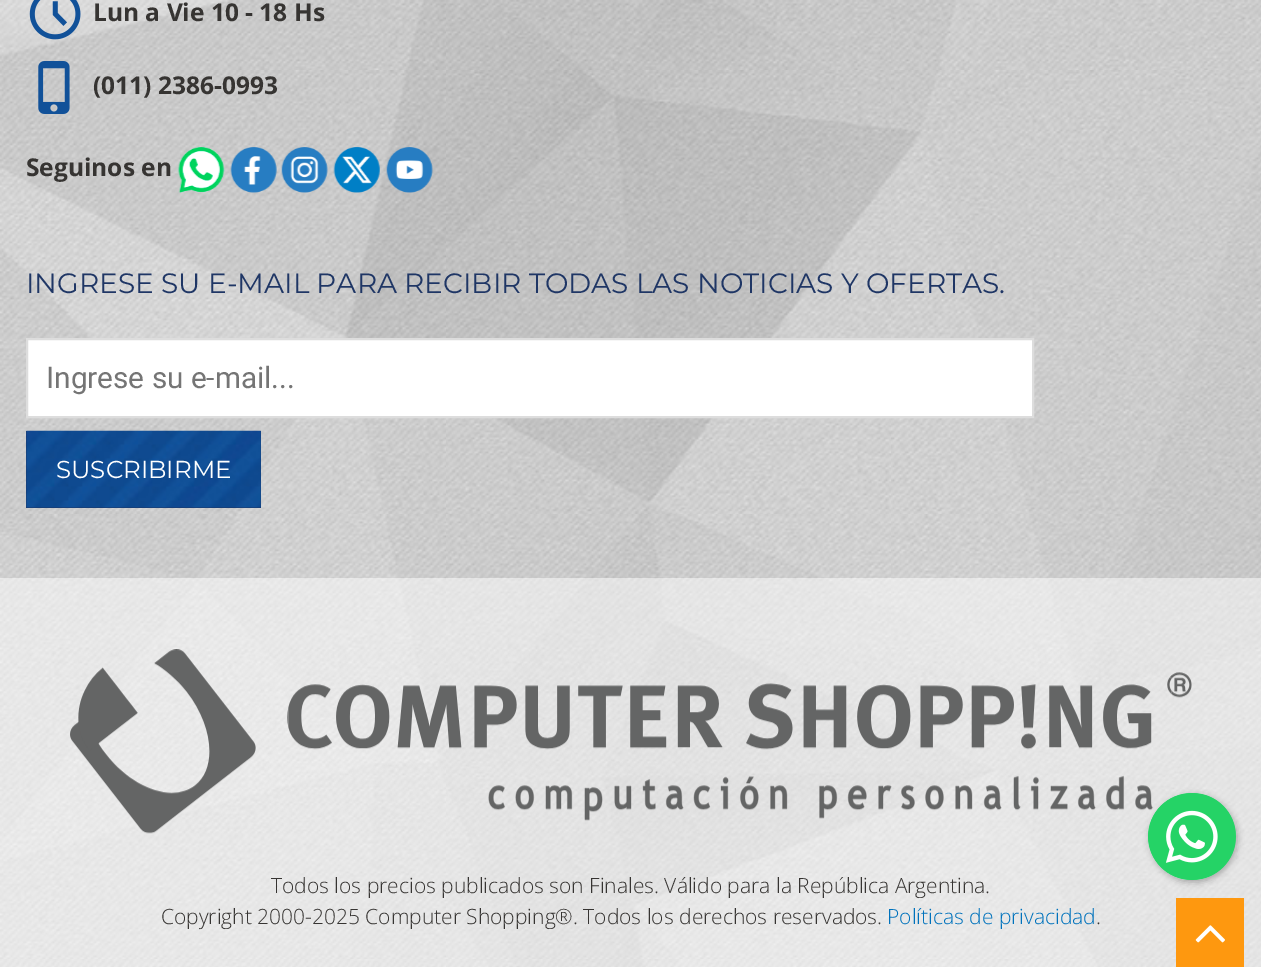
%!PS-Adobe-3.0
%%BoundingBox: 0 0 1261 967
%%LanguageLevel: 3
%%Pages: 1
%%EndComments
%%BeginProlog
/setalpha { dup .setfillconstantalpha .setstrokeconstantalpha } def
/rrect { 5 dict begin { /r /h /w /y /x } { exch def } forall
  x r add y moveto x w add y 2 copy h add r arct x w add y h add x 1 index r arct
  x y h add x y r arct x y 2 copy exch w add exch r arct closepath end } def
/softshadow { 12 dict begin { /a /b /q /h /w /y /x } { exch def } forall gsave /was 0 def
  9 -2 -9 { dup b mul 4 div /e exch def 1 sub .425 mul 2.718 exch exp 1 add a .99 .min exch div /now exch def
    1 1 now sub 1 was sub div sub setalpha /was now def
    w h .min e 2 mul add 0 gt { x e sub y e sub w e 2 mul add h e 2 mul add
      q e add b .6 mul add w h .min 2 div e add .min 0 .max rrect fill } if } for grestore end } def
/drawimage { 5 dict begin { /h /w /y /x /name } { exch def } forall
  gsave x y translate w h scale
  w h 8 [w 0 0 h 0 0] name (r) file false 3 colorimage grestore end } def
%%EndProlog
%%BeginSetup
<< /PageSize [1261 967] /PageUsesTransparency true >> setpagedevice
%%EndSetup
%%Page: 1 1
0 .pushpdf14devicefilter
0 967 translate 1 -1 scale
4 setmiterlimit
1 setgray
0 0 1261 967 rectfill
(images/1.raw) 0 0 1261 967 drawimage
(images/2.raw) 29 0 52 40 drawimage
(images/3.raw) 38 61 32 53 drawimage
(images/4.raw) 177 147 48 46 drawimage
(images/5.raw) 230 147 47 46 drawimage
(images/6.raw) 281 147 47 46 drawimage
(images/7.raw) 333 147 47 46 drawimage
(images/8.raw) 386 147 47 46 drawimage
newpath 27 339 moveto 1033 339 lineto 1033 417 lineto 27 417 lineto closepath gsave fill grestore
0.867 setgray
2 setlinewidth
stroke
0.122 0.212 0.396 setrgbcolor
26 431 235 77 rectfill
(images/9.raw) 26 430 235 78 drawimage
0.5 setalpha
1 setgray
0 578 1261 389 rectfill
1 setalpha
(images/10.raw) 70 649 1122 185 drawimage
0.235 setgray
1150 795 87 87 43.5 3.5 0.4 softshadow
0.145 0.827 0.4 setrgbcolor
1148 793 88 87 43.5 rrect fill
(images/11.raw) 1148 793 88 87 drawimage
0.996 0.596 0.059 setrgbcolor
1176 898 68 69 rectfill
(images/12.raw) 1195 925 30 18 drawimage
/OpenSans-Bold [24.5 0 0 -24.5 0 0] selectfont
0.212 0.204 0.196 setrgbcolor
93 21 moveto (Lun a Vie 10 - 18 Hs) show
93 94 moveto (\(011\) 2386-0993) show
26 176 moveto (Seguinos en) show
/Montserrat-Regular [28 0 0 -28 0 0] selectfont
0.122 0.212 0.396 setrgbcolor
26 293 moveto (INGRESE SU E-MAIL PARA RECIBIR TODAS LAS NOTICIAS Y OFERTAS.) show
/Roboto-Regular [29.75 0 0 -29.75 0 0] selectfont
0.459 setgray
46 388 moveto (Ingrese su e-mail...) show
/Montserrat-Regular [24.5 0 0 -24.5 0 0] selectfont
1 setgray
56 478 moveto (SUSCRIBIRME) show
/OpenSans-Light [21 0 0 -21 0 0] selectfont
0.212 0.204 0.196 setrgbcolor
271 893 moveto (Todos los precios publicados son Finales. Válido para la República Argentina.) show
161 924 moveto (Copyright 2000-2025 Computer Shopping®. Todos los derechos reservados.) show
0 0.447 0.737 setrgbcolor
887 924 moveto (Políticas de privacidad) show
0.212 0.204 0.196 setrgbcolor
1096 924 moveto (.) show
.poppdf14devicefilter showpage
%%EOF
